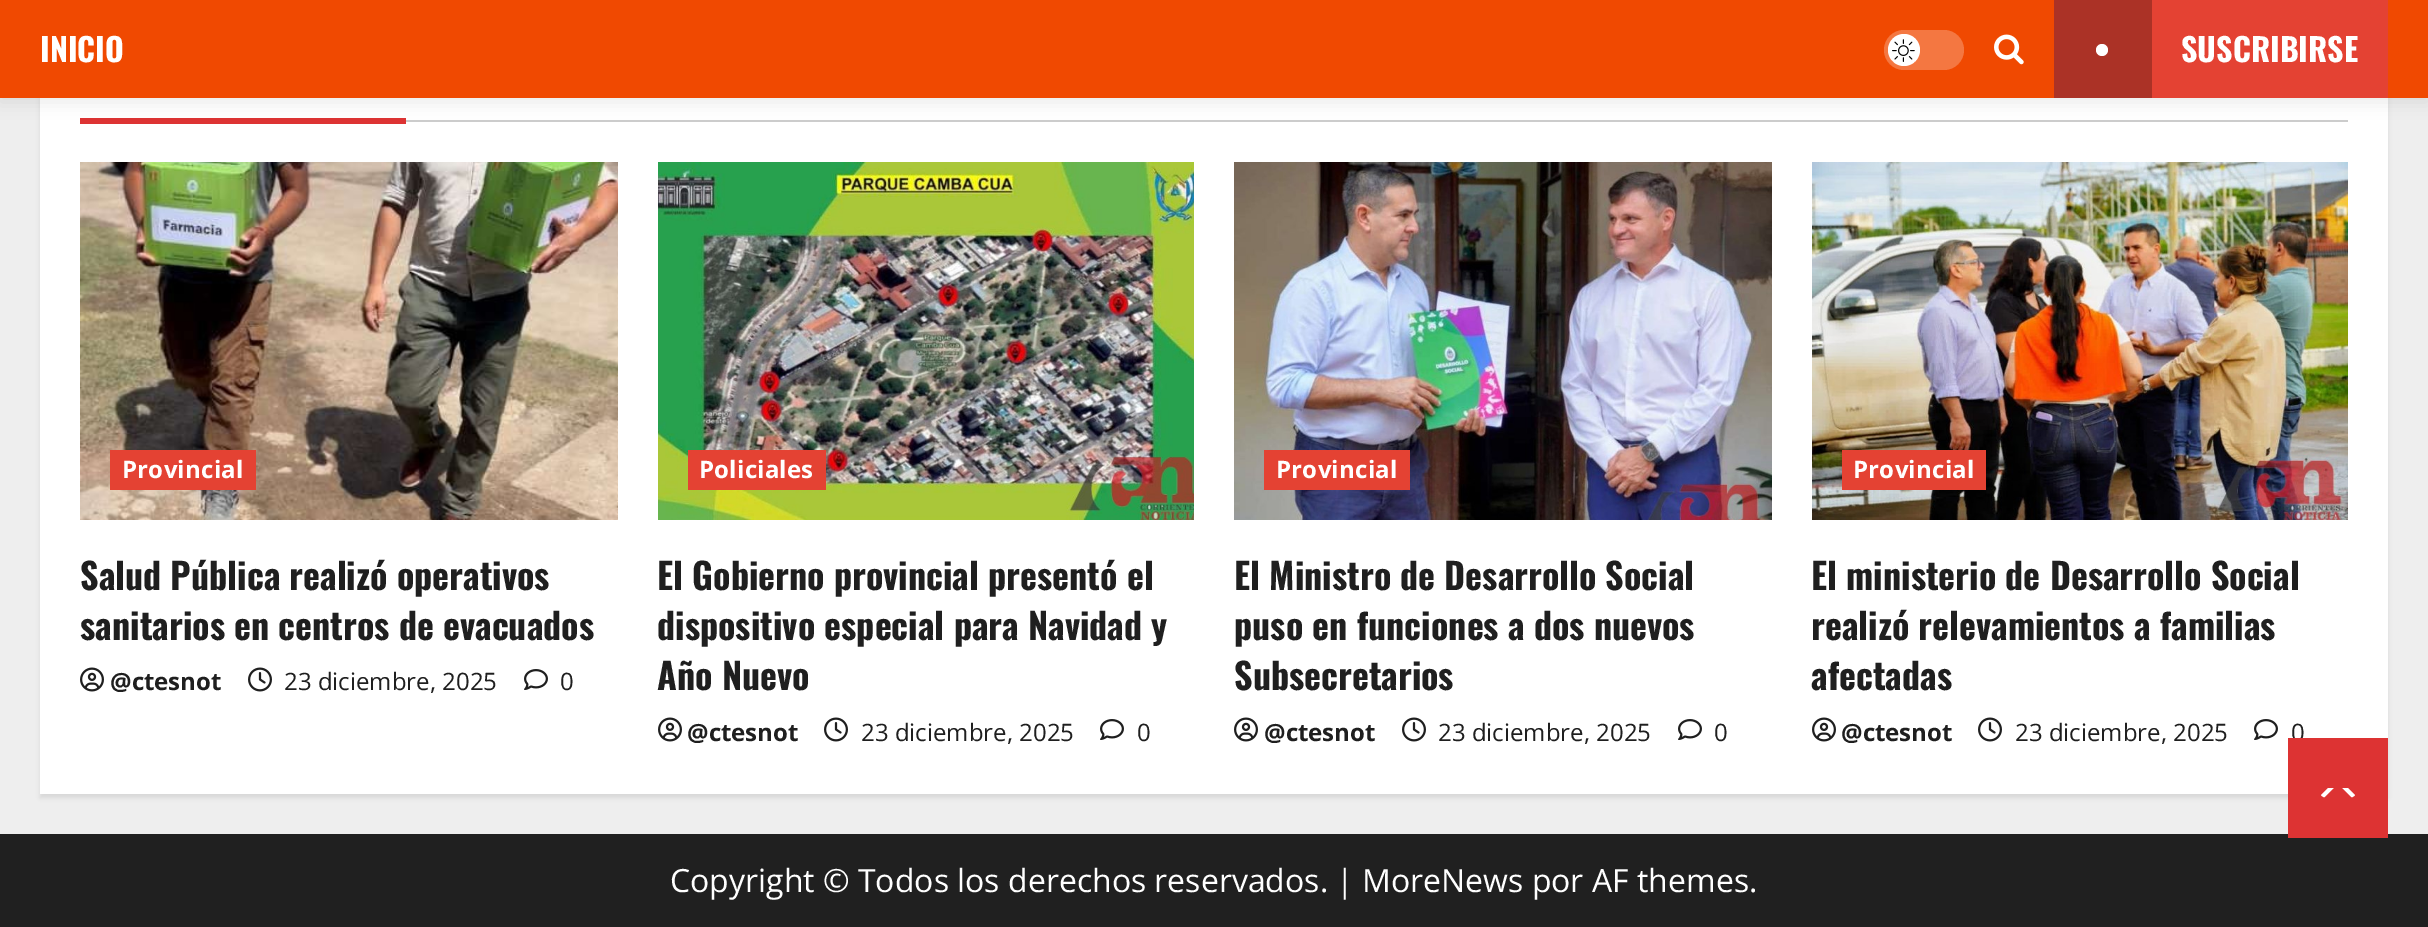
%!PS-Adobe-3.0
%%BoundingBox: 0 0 2428 927
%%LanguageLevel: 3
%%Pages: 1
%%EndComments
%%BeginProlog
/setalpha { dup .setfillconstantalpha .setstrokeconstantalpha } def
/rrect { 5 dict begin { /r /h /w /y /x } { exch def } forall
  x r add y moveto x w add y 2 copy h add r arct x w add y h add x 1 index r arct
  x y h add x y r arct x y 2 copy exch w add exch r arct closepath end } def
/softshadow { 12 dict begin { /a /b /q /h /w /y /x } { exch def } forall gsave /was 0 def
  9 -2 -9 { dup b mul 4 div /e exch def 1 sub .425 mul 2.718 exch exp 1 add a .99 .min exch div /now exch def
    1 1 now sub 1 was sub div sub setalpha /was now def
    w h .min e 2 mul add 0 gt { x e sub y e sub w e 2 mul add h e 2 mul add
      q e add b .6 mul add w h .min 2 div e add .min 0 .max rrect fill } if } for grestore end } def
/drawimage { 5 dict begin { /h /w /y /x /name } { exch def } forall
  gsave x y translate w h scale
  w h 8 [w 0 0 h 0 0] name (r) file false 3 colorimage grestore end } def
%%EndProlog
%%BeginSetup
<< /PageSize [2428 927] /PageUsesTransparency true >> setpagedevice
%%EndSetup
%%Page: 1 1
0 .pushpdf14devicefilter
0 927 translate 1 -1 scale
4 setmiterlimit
0.933 setgray
0 0 2428 927 rectfill
0 setgray
40 20 2348 778 0 2 0.08 softshadow
1 setgray
40 98 2348 696 rectfill
0.8 setgray
406 120 1942 2 rectfill
0.867 0.2 0.2 setrgbcolor
80 118 326 6 rectfill
0 setgray
0 4 2428 98 0 8 0.08 softshadow
0.941 0.286 0.004 setrgbcolor
0 0 2428 98 rectfill
0.957 0.467 0.255 setrgbcolor
1884 30 80 40 20 rrect fill
1 setgray
newpath 1904 50 16 0 360 arc closepath fill
(images/1.raw) 1892 39 23 23 drawimage
(images/2.raw) 1994 34 30 31 drawimage
0.894 0.259 0.2 setrgbcolor
2152 0 236 98 rectfill
0.671 0.196 0.149 setrgbcolor
2054 0 98 98 rectfill
1 setgray
newpath 2102 50 6 0 360 arc closepath fill
(images/3.raw) 80 162 538 358 drawimage
0.894 0.259 0.2 setrgbcolor
110 450 146 40 rectfill
(images/4.raw) 80 667 24 25 drawimage
(images/5.raw) 248 667 24 25 drawimage
(images/6.raw) 524 669 24 21 drawimage
(images/7.raw) 658 162 536 358 drawimage
688 450 138 40 rectfill
(images/4.raw) 658 717 24 25 drawimage
(images/5.raw) 824 717 24 25 drawimage
(images/6.raw) 1100 719 24 21 drawimage
(images/8.raw) 1234 162 538 358 drawimage
1264 450 146 40 rectfill
(images/4.raw) 1234 717 24 25 drawimage
(images/5.raw) 1402 717 24 25 drawimage
(images/6.raw) 1678 719 24 21 drawimage
(images/9.raw) 1812 162 536 358 drawimage
1842 450 144 40 rectfill
(images/4.raw) 1812 717 24 25 drawimage
(images/5.raw) 1978 717 24 25 drawimage
(images/6.raw) 2254 719 24 21 drawimage
0.125 setgray
0 834 2428 93 rectfill
/Oswald-Bold [32 0 0 -32 0 0] selectfont
1 setgray
40 62 moveto (INICIO) show
2181 62 moveto (SUSCRIBIRSE) show
/OpenSans-Bold [24 0 0 -24 0 0] selectfont
122 478 moveto 0.25 0 (Provincial) ashow
/Oswald-Bold [36 0 0 -36 0 0] selectfont
0.122 setgray
80 590 moveto (Salud Pública realizó operativos) show
80 640 moveto (sanitarios en centros de evacuados) show
/OpenSans-Bold [24 0 0 -24 0 0] selectfont
110 690 moveto (@ctesnot) show
/OpenSans-Regular [24 0 0 -24 0 0] selectfont
284 690 moveto (23 diciembre, 2025) show
560 690 moveto (0) show
/OpenSans-Bold [24 0 0 -24 0 0] selectfont
1 setgray
699 478 moveto 0.25 0 (Policiales) ashow
/Oswald-Bold [36 0 0 -36 0 0] selectfont
0.122 setgray
657 590 moveto (El Gobierno provincial presentó el) show
657 640 moveto (dispositivo especial para Navidad y) show
657 690 moveto (Año Nuevo) show
/OpenSans-Bold [24 0 0 -24 0 0] selectfont
687 741 moveto (@ctesnot) show
/OpenSans-Regular [24 0 0 -24 0 0] selectfont
861 741 moveto (23 diciembre, 2025) show
1137 741 moveto (0) show
/OpenSans-Bold [24 0 0 -24 0 0] selectfont
1 setgray
1276 478 moveto 0.25 0 (Provincial) ashow
/Oswald-Bold [36 0 0 -36 0 0] selectfont
0.122 setgray
1234 590 moveto (El Ministro de Desarrollo Social) show
1234 640 moveto (puso en funciones a dos nuevos) show
1234 690 moveto (Subsecretarios) show
/OpenSans-Bold [24 0 0 -24 0 0] selectfont
1264 741 moveto (@ctesnot) show
/OpenSans-Regular [24 0 0 -24 0 0] selectfont
1438 741 moveto (23 diciembre, 2025) show
1714 741 moveto (0) show
/OpenSans-Bold [24 0 0 -24 0 0] selectfont
1 setgray
1853 478 moveto 0.25 0 (Provincial) ashow
/Oswald-Bold [36 0 0 -36 0 0] selectfont
0.122 setgray
1811 590 moveto (El ministerio de Desarrollo Social) show
1811 640 moveto (realizó relevamientos a familias) show
1811 690 moveto (afectadas) show
/OpenSans-Bold [24 0 0 -24 0 0] selectfont
1841 741 moveto (@ctesnot) show
/OpenSans-Regular [24 0 0 -24 0 0] selectfont
2015 741 moveto (23 diciembre, 2025) show
2291 741 moveto (0) show
/OpenSans-Regular [32 0 0 -32 0 0] selectfont
1 setgray
670 892 moveto (Copyright © Todos los derechos reservados. | MoreNews por AF themes.) show
0.867 0.2 0.2 setrgbcolor
2288 738 100 100 rectfill
1 setgray
newpath 2328 798 moveto 2348 798 lineto 2351 798 2353.5 797 2355 795 curveto 2348 788 lineto 2328 788 lineto 2321 795 lineto 2322.5 797 2325 798 2328 798 curveto closepath fill
0.867 0.2 0.2 setrgbcolor
newpath 2358 804 moveto 2318 804 lineto 2338 784 lineto closepath fill
.poppdf14devicefilter showpage
%%EOF
